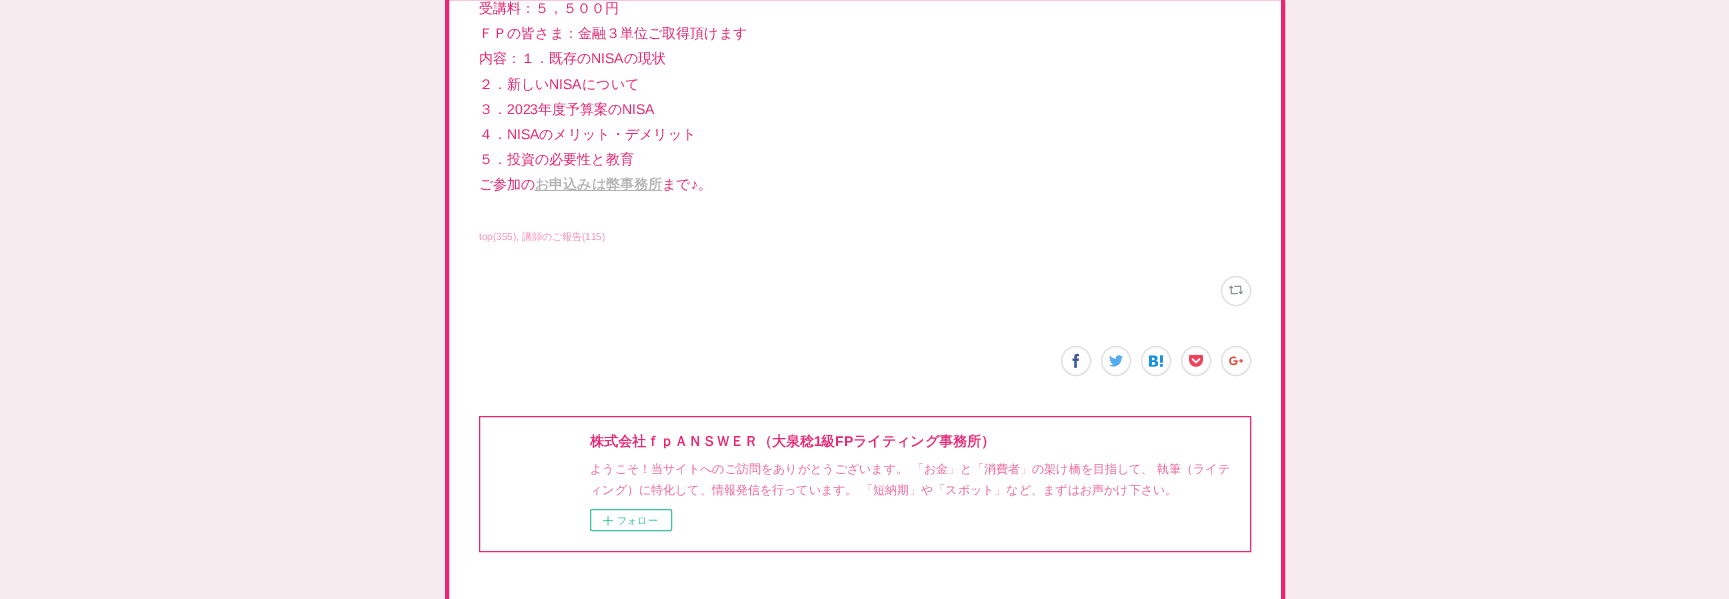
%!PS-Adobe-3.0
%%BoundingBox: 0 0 1729 599
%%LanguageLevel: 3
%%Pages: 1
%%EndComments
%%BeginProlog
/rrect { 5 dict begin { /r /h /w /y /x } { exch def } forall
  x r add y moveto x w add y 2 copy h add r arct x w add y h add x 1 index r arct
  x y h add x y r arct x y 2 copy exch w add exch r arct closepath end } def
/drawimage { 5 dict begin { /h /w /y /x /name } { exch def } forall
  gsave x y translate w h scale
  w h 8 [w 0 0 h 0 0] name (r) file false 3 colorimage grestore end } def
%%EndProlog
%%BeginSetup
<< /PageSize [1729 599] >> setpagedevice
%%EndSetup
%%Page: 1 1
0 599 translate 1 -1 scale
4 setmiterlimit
0.965 0.925 0.941 setrgbcolor
0 0 1729 599 rectfill
1 setgray
newpath 447 -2 moveto 1283 -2 lineto 1283 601 lineto 447 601 lineto closepath gsave fill grestore
0.91 0.149 0.455 setrgbcolor
4 setlinewidth
stroke
0.702 setgray
535 190 127 1 rectfill
0.867 setgray
1 setlinewidth
newpath 1236 291 14.5 0 360 arc closepath stroke
(images/1.raw) 1229 285 14 10 drawimage
newpath 1076 361 14.5 0 360 arc closepath stroke
(images/2.raw) 1072 353 7 15 drawimage
newpath 1116 361 14.5 0 360 arc closepath stroke
(images/3.raw) 1109 355 14 12 drawimage
newpath 1156 361 14.5 0 360 arc closepath stroke
(images/4.raw) 1149 355 14 12 drawimage
newpath 1196 361 14.5 0 360 arc closepath stroke
(images/5.raw) 1189 354 14 13 drawimage
newpath 1236 361 14.5 0 360 arc closepath stroke
(images/6.raw) 1229 356 14 10 drawimage
0.91 0.149 0.455 setrgbcolor
479.5 416.5 771 135 rectstroke
0.239 0.769 0.616 setrgbcolor
590.5 509.5 81 21 1.5 rrect stroke
(images/7.raw) 603 515 10 11 drawimage
/WenQuanYiZenHei-Medium [14 0 0 -14 0 0] selectfont
0.91 0.149 0.455 setrgbcolor
479 13 moveto (受講料：５，５００円) show
479 38 moveto (ＦＰの皆さま：金融３単位ご取得頂けます) show
479 63 moveto (内容：１．既存の) show
/LiberationSans-Regular [14 0 0 -14 0 0] selectfont
591 63 moveto (NISA) show
/WenQuanYiZenHei-Medium [14 0 0 -14 0 0] selectfont
624 63 moveto (の現状) show
479 89 moveto (２．新しい) show
/LiberationSans-Regular [14 0 0 -14 0 0] selectfont
549 89 moveto (NISA) show
/WenQuanYiZenHei-Medium [14 0 0 -14 0 0] selectfont
582 89 moveto (について) show
479 114 moveto (３．) show
/LiberationSans-Regular [14 0 0 -14 0 0] selectfont
507 114 moveto (2023) show
/WenQuanYiZenHei-Medium [14 0 0 -14 0 0] selectfont
538 114 moveto (年度予算案の) show
/LiberationSans-Regular [14 0 0 -14 0 0] selectfont
622 114 moveto (NISA) show
/WenQuanYiZenHei-Medium [14 0 0 -14 0 0] selectfont
479 139 moveto (４．) show
/LiberationSans-Regular [14 0 0 -14 0 0] selectfont
507 139 moveto (NISA) show
/WenQuanYiZenHei-Medium [14 0 0 -14 0 0] selectfont
539 139 moveto (のメリット・デメリット) show
479 164 moveto (５．投資の必要性と教育) show
479 189 moveto (ご参加の) show
/WenQuanYiZenHei-Bold [14 0 0 -14 0 0] selectfont
0.702 setgray
535 189 moveto (お申込みは弊事務所) show
/WenQuanYiZenHei-Medium [14 0 0 -14 0 0] selectfont
0.91 0.149 0.455 setrgbcolor
662 189 moveto (まで) show
/LiberationSans-Regular [14 0 0 -14 0 0] selectfont
691 189 moveto (♪) show
/WenQuanYiZenHei-Medium [14 0 0 -14 0 0] selectfont
698 189 moveto (。) show
/LiberationSans-Regular [10 0 0 -10 0 0] selectfont
0.957 0.576 0.729 setrgbcolor
479 240 moveto (top\(355\),) show
/WenQuanYiZenHei-Medium [10 0 0 -10 0 0] selectfont
522 240 moveto (講師のご報告) show
/LiberationSans-Regular [10 0 0 -10 0 0] selectfont
582 240 moveto (\(115\)) show
/WenQuanYiZenHei-Bold [14 0 0 -14 0 0] selectfont
0.91 0.149 0.455 setrgbcolor
590 446 moveto (株式会社ｆｐＡＮＳＷＥＲ（大泉稔) show
/LiberationSans-Bold [14 0 0 -14 0 0] selectfont
814 446 moveto (1) show
/WenQuanYiZenHei-Bold [14 0 0 -14 0 0] selectfont
821 446 moveto (級) show
/LiberationSans-Bold [14 0 0 -14 0 0] selectfont
835 446 moveto (FP) show
/WenQuanYiZenHei-Bold [14 0 0 -14 0 0] selectfont
853 446 moveto (ライティング事務所）) show
/WenQuanYiZenHei-Medium [12 0 0 -12 0 0] selectfont
0.937 0.404 0.62 setrgbcolor
590 473 moveto (ようこそ！当サイトへのご訪問をありがとうございます。 「お金」と「消費者」の架け橋を目指して、 執筆（ライテ) show
590 494 moveto (ィング）に特化して、情報発信を行っています。 「短納期」や「スポット」など、まずはお声かけ下さい。) show
/WenQuanYiZenHei-Medium [10 0 0 -10 0 0] selectfont
0.239 0.769 0.616 setrgbcolor
617 524 moveto (フォロー) show
showpage
%%EOF
